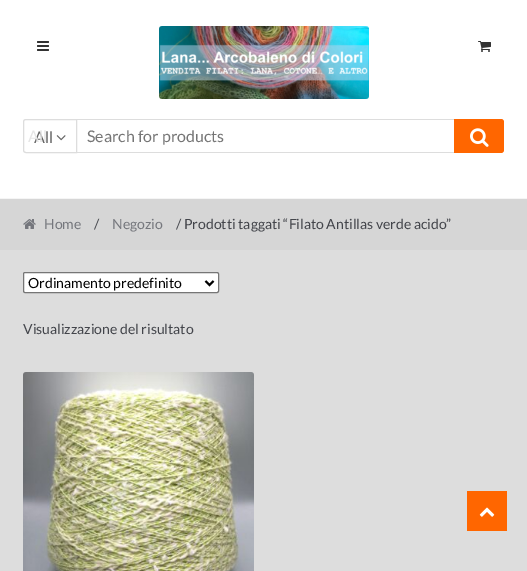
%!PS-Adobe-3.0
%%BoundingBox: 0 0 527 571
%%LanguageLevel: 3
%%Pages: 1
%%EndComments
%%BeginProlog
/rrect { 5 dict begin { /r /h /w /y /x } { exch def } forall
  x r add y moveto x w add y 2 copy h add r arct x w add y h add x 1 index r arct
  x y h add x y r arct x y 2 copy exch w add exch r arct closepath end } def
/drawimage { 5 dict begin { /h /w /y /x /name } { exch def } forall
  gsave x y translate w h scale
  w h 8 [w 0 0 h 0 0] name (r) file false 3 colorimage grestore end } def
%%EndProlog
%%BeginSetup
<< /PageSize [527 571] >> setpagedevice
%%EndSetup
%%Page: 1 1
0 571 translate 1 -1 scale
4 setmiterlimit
0.867 setgray
0 0 527 571 rectfill
1 setgray
0 0 527 198 rectfill
0.961 setgray
0 198 527 1 rectfill
(images/1.raw) 37 41 12 10 drawimage
(images/2.raw) 159 26 210 73 drawimage
(images/3.raw) 478 41 13 11 drawimage
0.867 setgray
newpath 26 119.5 moveto 76.5 119.5 lineto 76.5 152.5 lineto 26 152.5 lineto 24.5 152.5 23.5 151.5 23.5 150 curveto 23.5 122 lineto 23.5 120.5 24.5 119.5 26 119.5 curveto closepath stroke
(images/4.raw) 56 135 10 6 drawimage
77 119 377 1 rectfill
77 152 377 1 rectfill
1 0.4 0 setrgbcolor
newpath 454 119 moveto 501 119 lineto 502.5 119 504 120.5 504 122 curveto 504 150 lineto 504 151.5 502.5 153 501 153 curveto 454 153 lineto closepath fill
(images/5.raw) 470 128 19 19 drawimage
0.839 setgray
0 199 527 51 rectfill
(images/6.raw) 23 219 13 10 drawimage
1 setgray
23.5 272.5 195 20 1.5 rrect gsave fill grestore
0.463 setgray
stroke
0 setgray
2 setlinewidth
newpath 205.5 281 moveto 209.5 285 lineto 213.5 281 lineto stroke
(images/7.raw) 23 372 231 199 drawimage
1 0.4 0 setrgbcolor
467 491 40 40 rectfill
(images/8.raw) 479 507 16 10 drawimage
/Lato-Regular [16 0 0 -16 0 0] selectfont
0.4 setgray
34 143 moveto (All) show
0.898 setgray
28 142 moveto (All) show
0.459 setgray
87 142 moveto (Search for products) show
/Lato-Regular [14 0 0 -14 0 0] selectfont
0.459 0.467 0.49 setrgbcolor
44 229 moveto (Home) show
0.263 0.271 0.294 setrgbcolor
94 229 moveto (/) show
0.459 0.467 0.49 setrgbcolor
112 229 moveto (Negozio) show
0.263 0.271 0.294 setrgbcolor
176 229 moveto (/ Prodotti taggati “Filato Antillas verde acido”) show
0 setgray
28 288 moveto (Ordinamento predefinito) show
0.263 0.271 0.294 setrgbcolor
23 334 moveto (Visualizzazione del risultato) show
showpage
%%EOF
